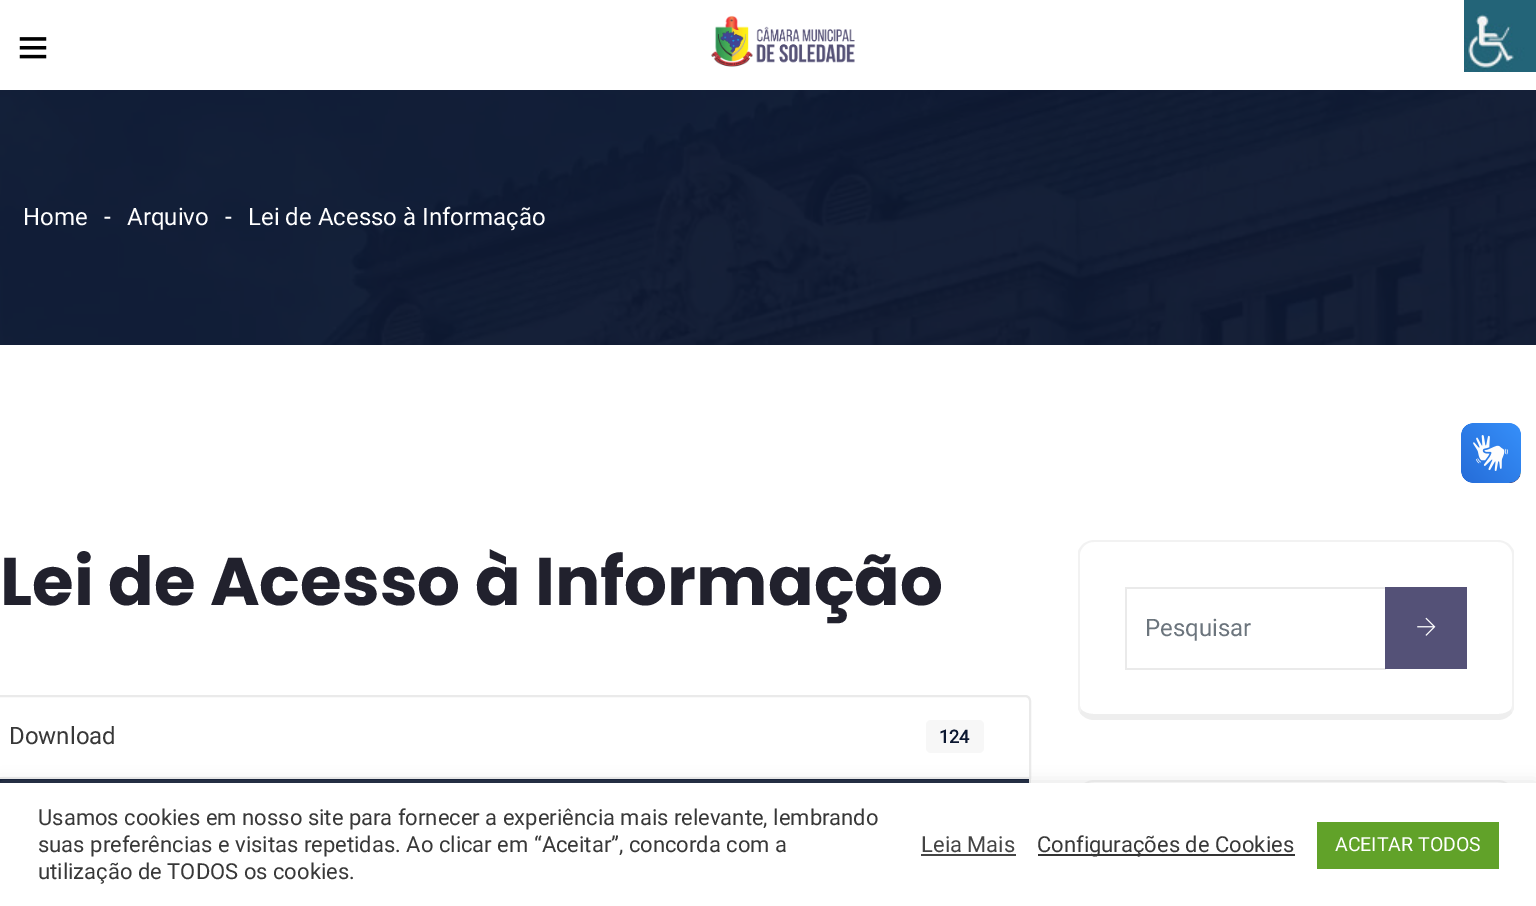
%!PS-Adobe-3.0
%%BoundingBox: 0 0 1536 906
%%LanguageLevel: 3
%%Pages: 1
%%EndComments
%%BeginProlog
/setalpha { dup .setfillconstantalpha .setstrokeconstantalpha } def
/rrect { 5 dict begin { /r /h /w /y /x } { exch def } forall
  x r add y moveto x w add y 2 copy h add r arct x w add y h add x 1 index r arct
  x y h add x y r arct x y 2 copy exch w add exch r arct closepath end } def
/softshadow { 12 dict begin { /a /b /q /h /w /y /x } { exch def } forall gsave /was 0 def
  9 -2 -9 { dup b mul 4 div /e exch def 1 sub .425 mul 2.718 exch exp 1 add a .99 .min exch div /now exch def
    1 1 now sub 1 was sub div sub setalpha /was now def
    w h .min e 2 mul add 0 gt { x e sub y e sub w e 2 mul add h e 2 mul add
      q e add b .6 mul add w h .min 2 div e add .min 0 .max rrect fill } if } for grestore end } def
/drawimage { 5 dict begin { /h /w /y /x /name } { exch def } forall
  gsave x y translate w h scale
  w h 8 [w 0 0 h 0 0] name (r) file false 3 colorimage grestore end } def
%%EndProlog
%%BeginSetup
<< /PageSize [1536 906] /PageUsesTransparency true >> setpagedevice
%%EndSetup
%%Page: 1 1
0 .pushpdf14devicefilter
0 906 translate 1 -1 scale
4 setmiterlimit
1 setgray
0 0 1536 906 rectfill
(images/1.raw) 19 37 28 22 drawimage
(images/2.raw) 711 15 144 52 drawimage
(images/3.raw) 1464 0 72 72 drawimage
(images/4.raw) 0 90 1536 255 drawimage
0.918 setgray
2 setlinewidth
newpath -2 696 moveto 1025 696 lineto 1028 696 1030 698 1030 701 curveto 1030 778 lineto -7 778 lineto -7 701 lineto -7 698 -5 696 -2 696 curveto closepath stroke
0.969 setgray
926 720 58 33 5 rrect fill
0.047 0.094 0.192 setrgbcolor
0 779 1029 4 rectfill
0.918 setgray
1029 777 2 6 rectfill
0.949 setgray
newpath 1094 540 moveto 1090 540 1086 542 1083 544 curveto 1084 546 lineto 1087 543 1090 542 1094 542 curveto 1498 542 lineto 1502 542 1505 543 1508 546 curveto 1509 544 lineto 1506 542 1502 540 1498 540 curveto closepath fill
newpath 1514 709 moveto 1512 713 lineto 1511 709 lineto 1512 706 lineto 1512 554 lineto 1512 551 1510 548 1508 546 curveto 1509 544 lineto 1511 546 1513 549 1514 551 curveto closepath fill
0.933 setgray
newpath 1094 720 moveto 1498 720 lineto 1504 720 1509 717 1512 713 curveto 1511 709 lineto 1509 712 1504 714 1498 714 curveto 1094 714 lineto 1088 714 1083 712 1081 709 curveto 1080 713 lineto 1083 717 1088 720 1094 720 curveto closepath fill
0.949 setgray
newpath 1078 551 moveto 1079 549 1081 546 1083 544 curveto 1084 546 lineto 1082 548 1080 551 1080 554 curveto 1080 706 lineto 1081 709 lineto 1080 713 lineto 1078 709 lineto closepath fill
0.918 setgray
1125 587 261 2 rectfill
1125 668 261 2 rectfill
1125 587 2 82 rectfill
0.329 0.318 0.467 setrgbcolor
1385 587 82 82 rectfill
(images/5.raw) 1417 617 19 19 drawimage
0.949 setgray
newpath 1094 780 moveto 1090 780 1086 782 1083 784 curveto 1084 786 lineto 1087 783 1090 782 1094 782 curveto 1498 782 lineto 1502 782 1505 783 1508 786 curveto 1509 784 lineto 1506 782 1502 780 1498 780 curveto closepath fill
(images/6.raw) 1461 423 60 60 drawimage
(images/7.raw) 1461 423 60 60 drawimage
0.675 0.671 0.671 setrgbcolor
0 782 1536 123 0 7.5 0.3 softshadow
1 setgray
0 783 1536 123 rectfill
0.267 setgray
921 854 95 2 rectfill
0.2 setgray
1038 854 257 2 rectfill
0.38 0.635 0.161 setrgbcolor
1317 822 182 47 rectfill
/Roboto-Regular [24 0 0 -24 0 0] selectfont
1 setgray
23 225 moveto (Home) show
104 225 moveto (-) show
127 225 moveto (Arquivo) show
225 225 moveto (-) show
248 225 moveto (Lei de Acesso à Informação) show
/Poppins-Bold [67.5 0 0 -67.5 0 0] selectfont
0.129 0.129 0.176 setrgbcolor
0 605 moveto (Lei de Acesso à Informação) show
/Roboto-Regular [24 0 0 -24 0 0] selectfont
0.22 setgray
9 744 moveto (Download) show
/Roboto-Bold [18 0 0 -18 0 0] selectfont
0.047 0.094 0.192 setrgbcolor
939 743 moveto (124) show
/Roboto-Regular [24 0 0 -24 0 0] selectfont
0.424 0.459 0.49 setrgbcolor
1145 636 moveto (Pesquisar) show
/Roboto-Regular [22 0 0 -22 0 0] selectfont
0.22 setgray
38 825 moveto (Usamos cookies em nosso site para fornecer a experiência mais relevante, lembrando) show
38 852 moveto (suas preferências e visitas repetidas. Ao clicar em “Aceitar”, concorda com a) show
38 879 moveto (utilização de TODOS os cookies.) show
0.267 setgray
921 852 moveto (Leia Mais) show
0.22 setgray
1037 852 moveto (Configurações de Cookies) show
/Roboto-Regular [19.5 0 0 -19.5 0 0] selectfont
1 setgray
1335 851 moveto (ACEITAR TODOS) show
.poppdf14devicefilter showpage
%%EOF
